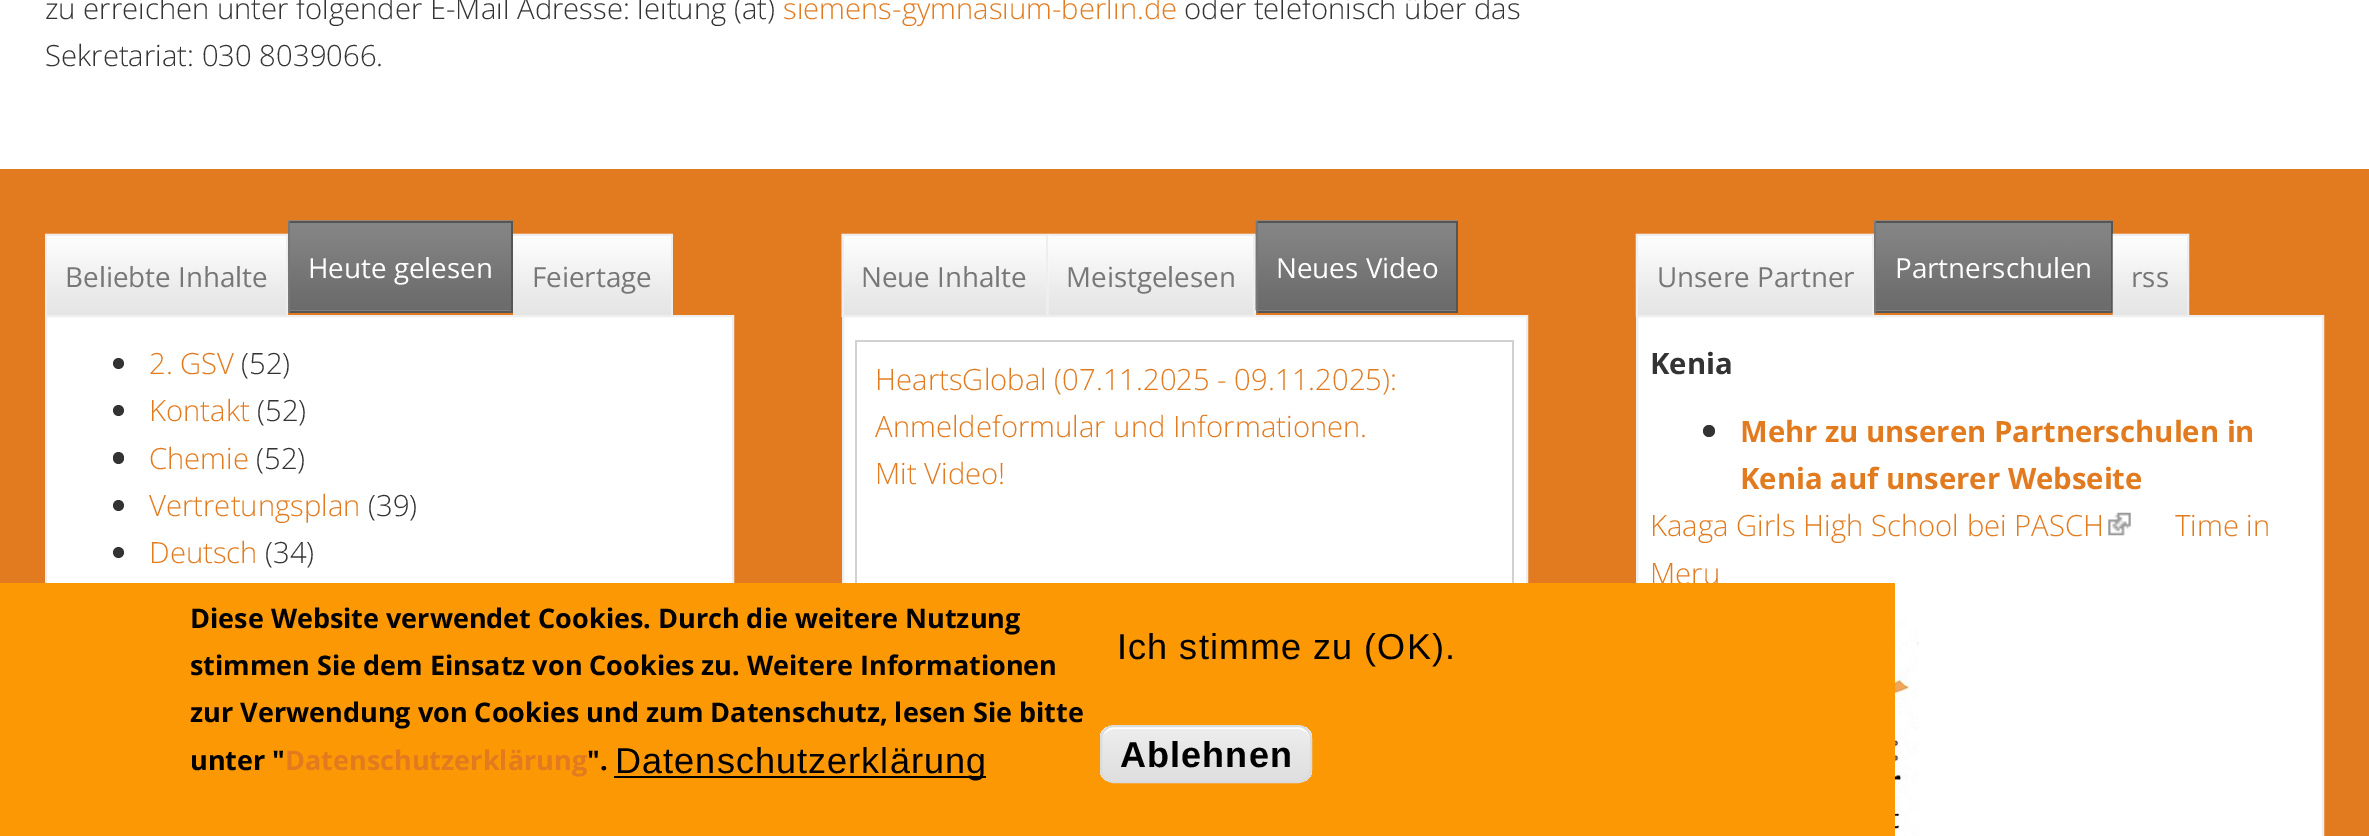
%!PS-Adobe-3.0
%%BoundingBox: 0 0 2369 836
%%LanguageLevel: 3
%%Pages: 1
%%EndComments
%%BeginProlog
/rrect { 5 dict begin { /r /h /w /y /x } { exch def } forall
  x r add y moveto x w add y 2 copy h add r arct x w add y h add x 1 index r arct
  x y h add x y r arct x y 2 copy exch w add exch r arct closepath end } def
/drawimage { 5 dict begin { /h /w /y /x /name } { exch def } forall
  gsave x y translate w h scale
  w h 8 [w 0 0 h 0 0] name (r) file false 3 colorimage grestore end } def
%%EndProlog
%%BeginSetup
<< /PageSize [2369 836] >> setpagedevice
%%EndSetup
%%Page: 1 1
0 836 translate 1 -1 scale
4 setmiterlimit
1 setgray
0 0 2369 836 rectfill
0.886 0.482 0.122 setrgbcolor
0 169 2369 667 rectfill
(images/1.raw) 45 233 243 82 drawimage
0.933 setgray
45 234 243 2 rectfill
286 234 2 83 rectfill
45 234 2 83 rectfill
0.522 setgray
290 310 221 1 rectfill
(images/2.raw) 288 220 225 91 drawimage
0.333 setgray
288 221 225 2 rectfill
511 221 2 92 rectfill
288 311 225 2 rectfill
0.467 setgray
288 221 2 92 rectfill
(images/3.raw) 513 233 160 82 drawimage
0.933 setgray
513 234 160 2 rectfill
671 234 2 83 rectfill
1 setgray
47 317 685 266 rectfill
0.933 setgray
2 setlinewidth
46 316 687 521 rectstroke
0.2 setgray
newpath 118.5 363.5 5.5 0 360 arc closepath fill
newpath 118.5 410.5 5.5 0 360 arc closepath fill
113 452 11 12 5.5 rrect fill
newpath 118.5 505.5 5.5 0 360 arc closepath fill
newpath 118.5 552.5 5.5 0 360 arc closepath fill
(images/4.raw) 841 233 208 84 drawimage
0.933 setgray
842 234 207 2 rectfill
1046 234 2 83 rectfill
842 234 2 83 rectfill
1 setgray
1255 236 1 79 rectfill
(images/5.raw) 1048 233 208 82 drawimage
0.933 setgray
1049 234 207 2 rectfill
1253 234 2 83 rectfill
0.522 setgray
1258 310 198 1 rectfill
(images/6.raw) 1255 220 203 91 drawimage
0.333 setgray
1256 221 202 2 rectfill
1456 221 2 92 rectfill
1256 311 202 2 rectfill
0.467 setgray
1256 221 2 92 rectfill
1 setgray
844 317 682 266 rectfill
0.933 setgray
843 316 684 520 rectstroke
0.82 setgray
855 340 659 2 rectfill
1512 340 2 243 rectfill
855 340 2 243 rectfill
(images/7.raw) 1635 233 240 84 drawimage
0.933 setgray
1636 234 238 2 rectfill
1872 234 2 83 rectfill
1636 234 2 83 rectfill
0.522 setgray
1876 310 235 1 rectfill
(images/8.raw) 1874 220 239 91 drawimage
0.333 setgray
1874 221 239 2 rectfill
2111 221 2 92 rectfill
1874 311 239 2 rectfill
0.467 setgray
1874 221 2 92 rectfill
(images/9.raw) 2112 233 78 82 drawimage
0.933 setgray
2113 234 76 2 rectfill
2187 234 2 83 rectfill
1 setgray
newpath 1637 316 moveto 2323 316 lineto 2323 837 lineto 1637 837 lineto closepath gsave fill grestore
0.933 setgray
stroke
0.2 setgray
newpath 1709 431 6 0 360 arc closepath fill
(images/10.raw) 2108 512 23 24 drawimage
(images/11.raw) 1895 618 24 218 drawimage
/OpenSans-Light [29.25 0 0 -29.25 0 0] selectfont
45 19 moveto (zu erreichen unter folgender E-Mail Adresse: leitung \(at\)) show
0.886 0.482 0.122 setrgbcolor
783 19 moveto (siemens-gymnasium-berlin.de) show
0.2 setgray
1184 19 moveto (oder telefonisch über das) show
45 66 moveto (Sekretariat: 030 8039066.) show
/OpenSans-Regular [27.75 0 0 -27.75 0 0] selectfont
0.467 setgray
65 287 moveto (Beliebte Inhalte) show
1 setgray
308 278 moveto (Heute gelesen) show
0.467 setgray
532 287 moveto (Feiertage) show
/OpenSans-Light [29.25 0 0 -29.25 0 0] selectfont
0.886 0.482 0.122 setrgbcolor
149 374 moveto (2. GSV) show
0.2 setgray
241 374 moveto (\(52\)) show
0.886 0.482 0.122 setrgbcolor
149 421 moveto (Kontakt) show
0.2 setgray
257 421 moveto (\(52\)) show
0.886 0.482 0.122 setrgbcolor
149 469 moveto (Chemie) show
0.2 setgray
256 469 moveto (\(52\)) show
0.886 0.482 0.122 setrgbcolor
149 516 moveto (Vertretungsplan) show
0.2 setgray
368 516 moveto (\(39\)) show
0.886 0.482 0.122 setrgbcolor
149 563 moveto (Deutsch) show
0.2 setgray
265 563 moveto (\(34\)) show
/OpenSans-Regular [27.75 0 0 -27.75 0 0] selectfont
0.467 setgray
861 287 moveto (Neue Inhalte) show
1066 287 moveto (Meistgelesen) show
1 setgray
1276 278 moveto (Neues Video) show
/OpenSans-Light [29.25 0 0 -29.25 0 0] selectfont
0.886 0.482 0.122 setrgbcolor
875 390 moveto (HeartsGlobal \(07.11.2025 - 09.11.2025\):) show
875 437 moveto (Anmeldeformular und Informationen.) show
875 484 moveto (Mit Video!) show
/OpenSans-Regular [27.75 0 0 -27.75 0 0] selectfont
0.467 setgray
1657 287 moveto (Unsere Partner) show
1 setgray
1895 278 moveto (Partnerschulen) show
0.467 setgray
2131 287 moveto (rss) show
/OpenSans-Bold [29.25 0 0 -29.25 0 0] selectfont
0.2 setgray
1650 374 moveto (Kenia) show
0.886 0.482 0.122 setrgbcolor
1740 442 moveto (Mehr zu unseren Partnerschulen in) show
1740 489 moveto (Kenia auf unserer Webseite) show
/OpenSans-Light [29.25 0 0 -29.25 0 0] selectfont
1650 536 moveto (Kaaga Girls High School bei PASCH) show
2175 536 moveto (Time in) show
1650 584 moveto (Meru) show
0.988 0.596 0.012 setrgbcolor
0 583 1895 253 rectfill
/OpenSans-Bold [27 0 0 -27 0 0] selectfont
0 setgray
190 628 moveto (Diese Website verwendet Cookies. Durch die weitere Nutzung) show
190 675 moveto (stimmen Sie dem Einsatz von Cookies zu. Weitere Informationen) show
190 722 moveto (zur Verwendung von Cookies und zum Datenschutz, lesen Sie bitte) show
190 770 moveto (unter ") show
0.886 0.482 0.122 setrgbcolor
285 770 moveto (Datenschutzerklärung) show
0 setgray
587 770 moveto (".) show
614 776 372 2 rectfill
/LiberationSans-Regular [36 0 0 -36 0 0] selectfont
615 773 moveto 1.1 0 (Datenschutzerklärung) ashow
1117 659 moveto 1.1 0 (Ich stimme zu \(OK\).) ashow
gsave
1100 725 212 58 14 rrect clip newpath
gsave newpath 1100 727 moveto 1312 727 lineto 1312 781 lineto 1100 781 lineto closepath clip newpath
<< /ShadingType 2 /ColorSpace /DeviceRGB /Coords [1206 727 1206 781] /Extend [true true] /Function << /FunctionType 3 /Domain [0 1] /Functions [<< /FunctionType 2 /Domain [0 1] /C0 [0.929 0.929 0.929] /C1 [0.929 0.929 0.929] /N 1 >> << /FunctionType 2 /Domain [0 1] /C0 [0.929 0.929 0.929] /C1 [0.875 0.875 0.875] /N 1 >>] /Bounds [0.05] /Encode [0 1 0 1] >> >> shfill grestore
grestore
1 setgray
newpath 1114 729 moveto 1298 729 lineto 1304 729 1310 734 1310 740 curveto 1310 738 lineto 1310 732 1305 727 1299 727 curveto 1114 727 lineto 1109 727 1105 730 1103 735 curveto 1106 732 1110 729 1114 729 curveto closepath fill
0.863 setgray
1101 726 210 56 13 rrect stroke
/LiberationSans-Bold [36 0 0 -36 0 0] selectfont
0 setgray
1120 767 moveto 1.1 0 (Ablehnen) ashow
showpage
%%EOF
